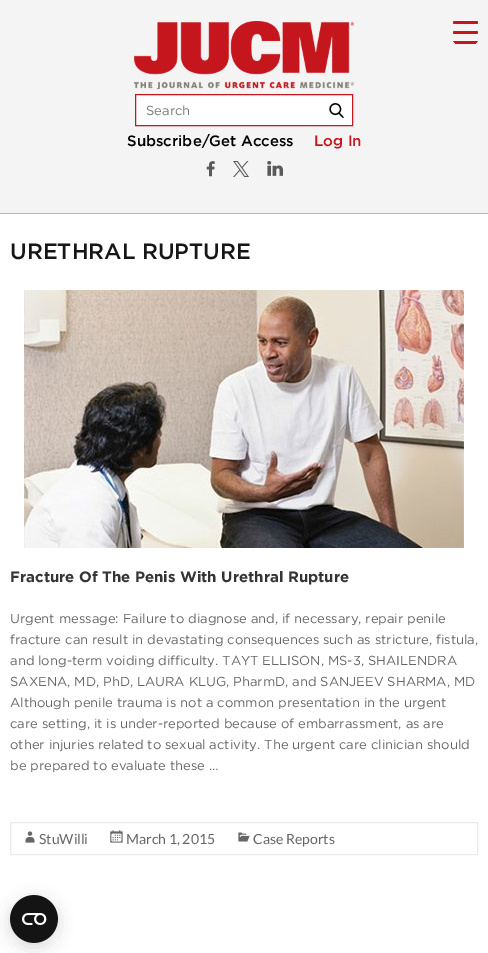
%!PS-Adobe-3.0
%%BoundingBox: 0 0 488 953
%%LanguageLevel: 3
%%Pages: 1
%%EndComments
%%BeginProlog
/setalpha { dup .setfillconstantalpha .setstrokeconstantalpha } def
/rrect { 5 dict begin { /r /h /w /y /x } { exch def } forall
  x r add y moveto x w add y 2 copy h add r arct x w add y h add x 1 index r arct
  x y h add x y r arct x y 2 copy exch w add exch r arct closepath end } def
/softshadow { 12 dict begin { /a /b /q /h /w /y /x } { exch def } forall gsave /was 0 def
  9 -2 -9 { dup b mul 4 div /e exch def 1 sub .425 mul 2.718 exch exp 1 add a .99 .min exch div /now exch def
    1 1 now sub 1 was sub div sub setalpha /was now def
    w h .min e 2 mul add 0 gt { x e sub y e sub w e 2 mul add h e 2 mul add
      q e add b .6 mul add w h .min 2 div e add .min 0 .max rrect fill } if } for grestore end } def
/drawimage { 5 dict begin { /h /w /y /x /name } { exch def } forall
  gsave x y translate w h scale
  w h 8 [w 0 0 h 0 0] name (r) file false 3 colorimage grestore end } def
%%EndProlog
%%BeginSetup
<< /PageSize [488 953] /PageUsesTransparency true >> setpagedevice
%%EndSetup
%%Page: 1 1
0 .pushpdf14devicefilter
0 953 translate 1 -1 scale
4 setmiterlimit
1 setgray
0 0 488 953 rectfill
0.957 setgray
0 0 488 213 rectfill
0.769 0.086 0.11 setrgbcolor
453 31 25 3 1.5 rrect fill
gsave
453 19 25 25 5 rrect clip newpath
453 21 25 3 1.5 rrect fill
453 41 25 3 1.5 rrect fill
grestore
0.725 setgray
0 213 488 1 rectfill
(images/1.raw) 134 21 220 68 drawimage
1 setgray
newpath 135.5 94.5 moveto 352.5 94.5 lineto 352.5 125.5 lineto 135.5 125.5 lineto closepath gsave fill grestore
0.769 0.086 0.11 setrgbcolor
stroke
(images/2.raw) 329 103 15 15 drawimage
(images/3.raw) 206 161 9 16 drawimage
(images/4.raw) 233 161 16 16 drawimage
(images/5.raw) 267 161 16 15 drawimage
(images/6.raw) 24 290 440 258 drawimage
0.918 setgray
10.5 822.5 467 32 rectstroke
(images/7.raw) 25 831 10 12 drawimage
(images/8.raw) 110 830 13 13 drawimage
(images/9.raw) 238 832 12 10 drawimage
0 setgray
10 899 48 48 24 8 0.15 softshadow
(images/10.raw) 10 895 48 48 drawimage
/Gotham-Regular [13 0 0 -13 0 0] selectfont
0.459 setgray
146 115 moveto (Search) show
/Gotham-Medium [15 0 0 -15 0 0] selectfont
0 setgray
127 146 moveto (Subscribe/Get Access) show
0.769 0.086 0.11 setrgbcolor
314 146 moveto (Log In) show
/Gotham-Medium [22 0 0 -22 0 0] selectfont
0.086 setgray
10 259 moveto (URETHRAL RUPTURE) show
/Gotham-Bold [15 0 0 -15 0 0] selectfont
0.208 0.204 0.216 setrgbcolor
10 582 moveto (Fracture Of The Penis With Urethral Rupture) show
/Gotham-Regular [13 0 0 -13 0 0] selectfont
0.4 setgray
10 623 moveto (Urgent message: Failure to diagnose and, if necessary, repair penile) show
10 644 moveto (fracture can result in devastating consequences such as stricture, fistula,) show
10 665 moveto (and long-term voiding difficulty. TAYT ELLISON, MS-3, SHAILENDRA) show
10 686 moveto (SAXENA, MD, PhD, LAURA KLUG, PharmD, and SANJEEV SHARMA, MD) show
10 707 moveto (Although penile trauma is not a common presentation in the urgent) show
10 728 moveto (care setting, it is under-reported because of embarrassment, as are) show
10 749 moveto (other injuries related to sexual activity. The urgent care clinician should) show
10 770 moveto (be prepared to evaluate these …) show
/Lato-Regular [14 0 0 -14 0 0] selectfont
39 844 moveto (StuWilli) show
126 844 moveto (March 1, 2015) show
253 844 moveto (Case Reports) show
.poppdf14devicefilter showpage
%%EOF
